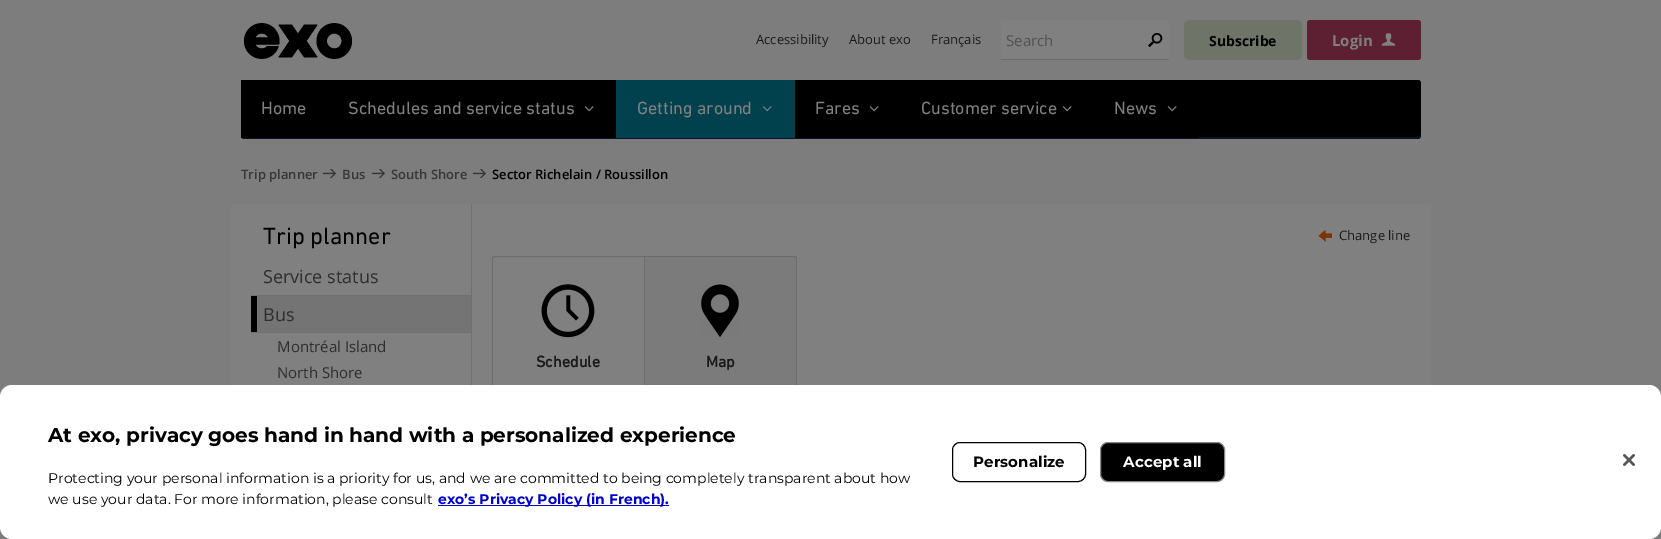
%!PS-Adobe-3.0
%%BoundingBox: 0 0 1661 539
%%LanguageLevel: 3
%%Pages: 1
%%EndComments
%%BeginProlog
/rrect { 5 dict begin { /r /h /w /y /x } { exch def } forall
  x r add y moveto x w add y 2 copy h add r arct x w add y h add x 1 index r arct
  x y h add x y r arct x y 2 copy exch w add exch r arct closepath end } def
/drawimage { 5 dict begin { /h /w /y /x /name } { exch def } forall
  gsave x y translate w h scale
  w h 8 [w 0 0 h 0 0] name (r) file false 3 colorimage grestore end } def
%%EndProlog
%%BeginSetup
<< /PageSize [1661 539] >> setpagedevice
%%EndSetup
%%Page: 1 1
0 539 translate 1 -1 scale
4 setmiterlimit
0.49 setgray
0 0 1661 539 rectfill
(images/1.raw) 243 23 109 36 drawimage
0.502 setgray
1001 20 168 39 rectfill
0.416 0.424 0.431 setrgbcolor
1001 59 168 1 rectfill
(images/2.raw) 1148 33 15 14 drawimage
0.431 0.459 0.408 setrgbcolor
1184 20 118 40 5 rrect fill
0.365 0.125 0.2 setrgbcolor
1307 20 114 40 3 rrect fill
(images/3.raw) 1381 33 15 13 drawimage
0.502 setgray
newpath 244 80 moveto 1418 80 lineto 1419.5 80 1421 81.5 1421 83 curveto 1421 138 lineto 241 138 lineto 241 83 lineto 241 81.5 242.5 80 244 80 curveto closepath fill
0.369 setgray
1420 137 1 1 rectfill
0.02 0.082 0.145 setrgbcolor
newpath 241 134 moveto 241 136 241 139 244 139 curveto 1418 139 lineto 1421 139 1421 136 1421 134 curveto 1421 136 1420 137 1418 137 curveto 244 137 lineto 242 137 241 136 241 134 curveto closepath fill
0 setgray
241 80 1180 57 3 rrect fill
241 80 87 58 rectfill
328 137 288 1 rectfill
(images/4.raw) 584 106 10 6 drawimage
0 0.255 0.302 setrgbcolor
616 80 179 58 rectfill
(images/5.raw) 762 106 10 6 drawimage
0 setgray
795 137 404 1 rectfill
(images/4.raw) 869 106 10 6 drawimage
(images/4.raw) 1062 106 10 6 drawimage
(images/4.raw) 1167 106 10 6 drawimage
(images/6.raw) 322 169 14 9 drawimage
(images/6.raw) 371 169 14 9 drawimage
(images/6.raw) 472 169 14 9 drawimage
0.502 setgray
231 204 1200 181 rectfill
0.439 setgray
471 204 1 181 rectfill
0.455 setgray
257 296 214 36 rectfill
0 setgray
251 296 6 36 rectfill
0.439 setgray
251 295 220 1 rectfill
251 332 220 1 rectfill
(images/7.raw) 1318 230 14 12 drawimage
0.416 0.424 0.431 setrgbcolor
newpath 495 256 moveto 644 256 lineto 644 395 lineto 492 395 lineto 492 259 lineto 492 257 493 256 495 256 curveto closepath 495 257 moveto 644 257 lineto 644 395 lineto 493 395 lineto 493 259 lineto 494 257 lineto closepath eofill
(images/8.raw) 541 284 54 54 drawimage
0.482 setgray
newpath 644 256 moveto 794 256 lineto 795.5 256 797 257.5 797 259 curveto 797 395 lineto 644 395 lineto closepath fill
0.416 0.424 0.431 setrgbcolor
newpath 644 256 moveto 794 256 lineto 796 256 797 257 797 259 curveto 797 395 lineto 644 395 lineto closepath 645 257 moveto 794 257 lineto 795 257 796 258 796 259 curveto 796 395 lineto 645 395 lineto closepath eofill
(images/9.raw) 701 284 38 53 drawimage
1 setgray
0 385 1661 154 12 rrect fill
0 0 0.8 setrgbcolor
438 505 231 1 rectfill
0 setgray
952.5 442.5 133 39 7.5 rrect stroke
1100.5 442.5 124 39 7.5 rrect gsave fill grestore
0.533 setgray
stroke
(images/10.raw) 1623 454 12 12 drawimage
/OpenSans-Regular [13 0 0 -13 0 0] selectfont
0.102 setgray
756 44 moveto (Accessibility) show
849 44 moveto (About exo) show
931 44 moveto (Français) show
/OpenSans-Regular [15 0 0 -15 0 0] selectfont
0.325 setgray
1006 46 moveto (Search) show
/OpenSans-Bold [14 0 0 -14 0 0] selectfont
0 setgray
1209 46 moveto (Subscribe) show
/OpenSans-Bold [15 0 0 -15 0 0] selectfont
0.502 setgray
1332 46 moveto (Login) show
/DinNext-Regular [18 0 0 -18 0 0] selectfont
261 114 moveto (Home) show
348 114 moveto (Schedules and service status) show
637 114 moveto (Getting around) show
815 114 moveto (Fares) show
921 114 moveto (Customer service) show
1114 114 moveto (News) show
/OpenSans-SemiBold [13 0 0 -13 0 0] selectfont
0.216 0.212 0.208 setrgbcolor
241 179 moveto (Trip planner) show
342 179 moveto (Bus) show
391 179 moveto (South Shore) show
0 setgray
492 179 moveto (Sector Richelain / Roussillon) show
/DinNext-Regular [24 0 0 -24 0 0] selectfont
263 244 moveto (Trip planner) show
/OpenSans-Regular [18 0 0 -18 0 0] selectfont
0.18 setgray
263 283 moveto (Service status) show
263 321 moveto (Bus) show
/OpenSans-Regular [15 0 0 -15 0 0] selectfont
277 352 moveto (Montréal Island) show
277 378 moveto (North Shore) show
/OpenSans-Regular [13 0 0 -13 0 0] selectfont
0.102 setgray
1339 240 moveto (Change line) show
/DinNext-Bold [16 0 0 -16 0 0] selectfont
536 367 moveto (Schedule) show
706 367 moveto (Map) show
/Montserrat-Bold [20 0 0 -20 0 0] selectfont
0 setgray
48 442 moveto (At exo, privacy goes hand in hand with a personalized experience) show
/Montserrat-Regular [14 0 0 -14 0 0] selectfont
48 483 moveto (Protecting your personal information is a priority for us, and we are committed to being completely transparent about how) show
48 504 moveto (we use your data. For more information, please consult) show
/Montserrat-Bold [14 0 0 -14 0 0] selectfont
0 0 0.8 setrgbcolor
438 504 moveto (exo’s Privacy Policy \(in French\).) show
/Montserrat-Bold [15 0 0 -15 0 0] selectfont
0 setgray
973 467 moveto 0.1 0 (Personalize) ashow
1 setgray
1123 467 moveto 0.1 0 (Accept all) ashow
showpage
%%EOF
